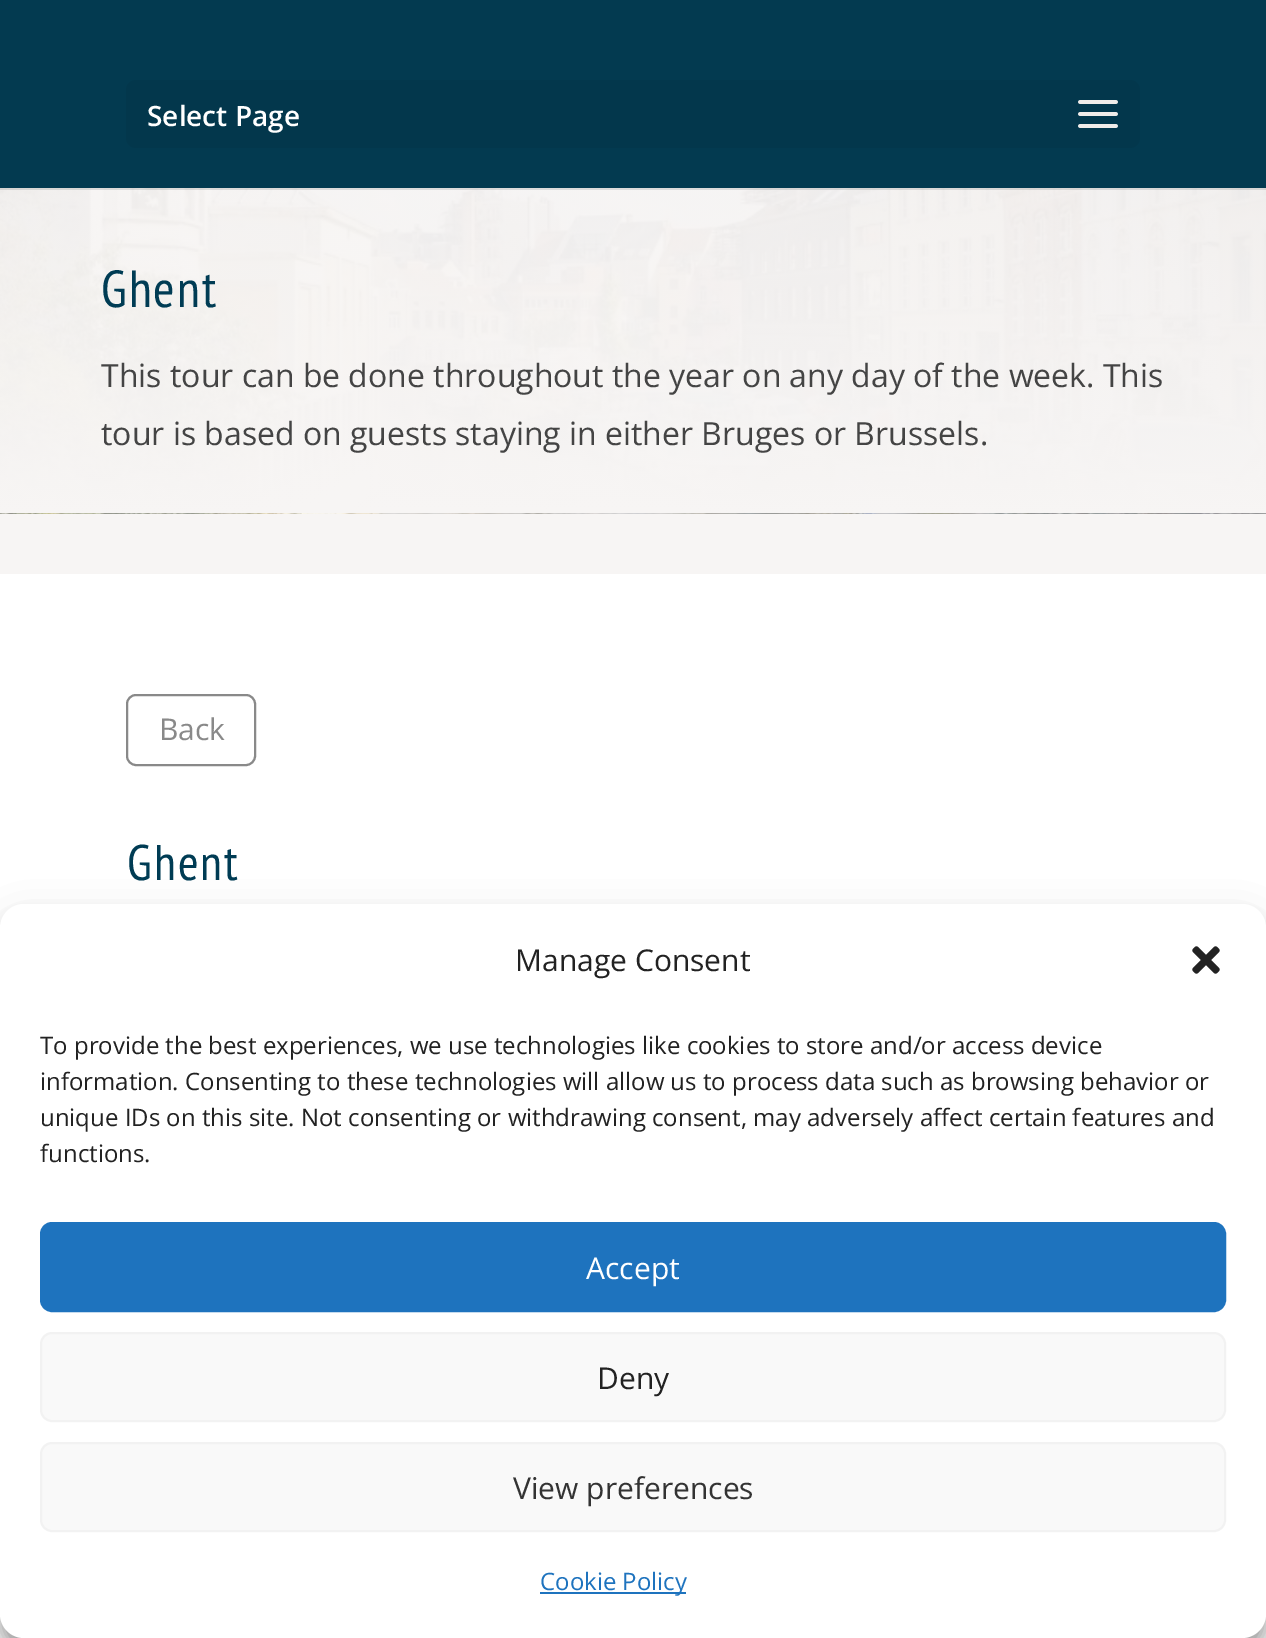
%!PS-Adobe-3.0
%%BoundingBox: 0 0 1266 1638
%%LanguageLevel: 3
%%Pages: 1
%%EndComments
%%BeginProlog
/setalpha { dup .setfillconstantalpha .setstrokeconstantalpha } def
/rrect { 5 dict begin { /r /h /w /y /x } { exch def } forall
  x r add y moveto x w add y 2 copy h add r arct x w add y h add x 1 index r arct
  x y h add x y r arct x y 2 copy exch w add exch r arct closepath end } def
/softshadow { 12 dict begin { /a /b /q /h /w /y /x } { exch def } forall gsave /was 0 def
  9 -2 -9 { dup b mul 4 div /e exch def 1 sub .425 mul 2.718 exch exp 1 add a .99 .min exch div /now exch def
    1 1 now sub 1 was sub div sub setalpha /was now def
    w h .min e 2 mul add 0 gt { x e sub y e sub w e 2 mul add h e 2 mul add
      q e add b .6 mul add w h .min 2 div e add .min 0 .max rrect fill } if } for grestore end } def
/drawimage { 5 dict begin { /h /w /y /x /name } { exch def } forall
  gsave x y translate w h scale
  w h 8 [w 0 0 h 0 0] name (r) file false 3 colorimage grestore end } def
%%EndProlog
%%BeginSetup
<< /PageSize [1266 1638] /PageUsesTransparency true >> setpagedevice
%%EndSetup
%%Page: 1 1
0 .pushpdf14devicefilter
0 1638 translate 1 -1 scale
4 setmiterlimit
1 setgray
0 0 1266 1638 rectfill
(images/2.raw) 0 188 1266 326 drawimage
0.1 setalpha
0 setgray
0 188 1266 2 rectfill
1 setalpha
0.012 0.227 0.314 setrgbcolor
0 0 1266 188 rectfill
0.012 0.216 0.298 setrgbcolor
126 80 1014 68 10 rrect fill
(images/1.raw) 1078 100 40 28 drawimage
0.969 0.961 0.957 setrgbcolor
0 514 1266 60 rectfill
0.537 setgray
2 setlinewidth
127 695 128 70 9 rrect stroke
0 setgray
0 916 1266 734 24 6 0.23 softshadow
0 924 1266 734 24 20 0.19 softshadow
1 setgray
0 904 1266 734 24 rrect fill
(images/3.raw) 1192 946 28 28 drawimage
0.118 0.451 0.745 setrgbcolor
41 1223 1184 88 11 rrect gsave fill grestore
stroke
0.976 setgray
41 1333 1184 88 11 rrect gsave fill grestore
0.949 setgray
stroke
0.976 setgray
41 1443 1184 88 11 rrect gsave fill grestore
0.949 setgray
stroke
0.118 0.451 0.745 setrgbcolor
540 1592 146 2 rectfill
/OpenSans-SemiBold [28 0 0 -28 0 0] selectfont
1 setgray
147 126 moveto (Select Page) show
/PTSansNarrow-Regular [52 0 0 -52 0 0] selectfont
0 0.235 0.329 setrgbcolor
101 307 moveto 2 0 (Ghent) ashow
/OpenSans-Regular [32 0 0 -32 0 0] selectfont
0.267 setgray
101 387 moveto (This tour can be done throughout the year on any day of the week. This) show
101 445 moveto (tour is based on guests staying in either Bruges or Brussels.) show
/OpenSans-Regular [30 0 0 -30 0 0] selectfont
0.537 setgray
159 740 moveto (Back) show
/PTSansNarrow-Regular [50 0 0 -50 0 0] selectfont
0 0.235 0.329 setrgbcolor
127 880 moveto 2 0 (Ghent) ashow
/OpenSans-Regular [30 0 0 -30 0 0] selectfont
0.133 setgray
515 971 moveto (Manage Consent) show
/OpenSans-Regular [24 0 0 -24 0 0] selectfont
40 1054 moveto (To provide the best experiences, we use technologies like cookies to store and/or access device) show
40 1090 moveto (information. Consenting to these technologies will allow us to process data such as browsing behavior or) show
40 1126 moveto (unique IDs on this site. Not consenting or withdrawing consent, may adversely affect certain features and) show
40 1162 moveto (functions.) show
/OpenSans-Regular [30 0 0 -30 0 0] selectfont
1 setgray
586 1279 moveto (Accept) show
0.133 setgray
597 1389 moveto (Deny) show
0.2 setgray
513 1499 moveto (View preferences) show
/OpenSans-Regular [24 0 0 -24 0 0] selectfont
0.118 0.451 0.745 setrgbcolor
540 1590 moveto (Cookie Policy) show
.poppdf14devicefilter showpage
%%EOF
